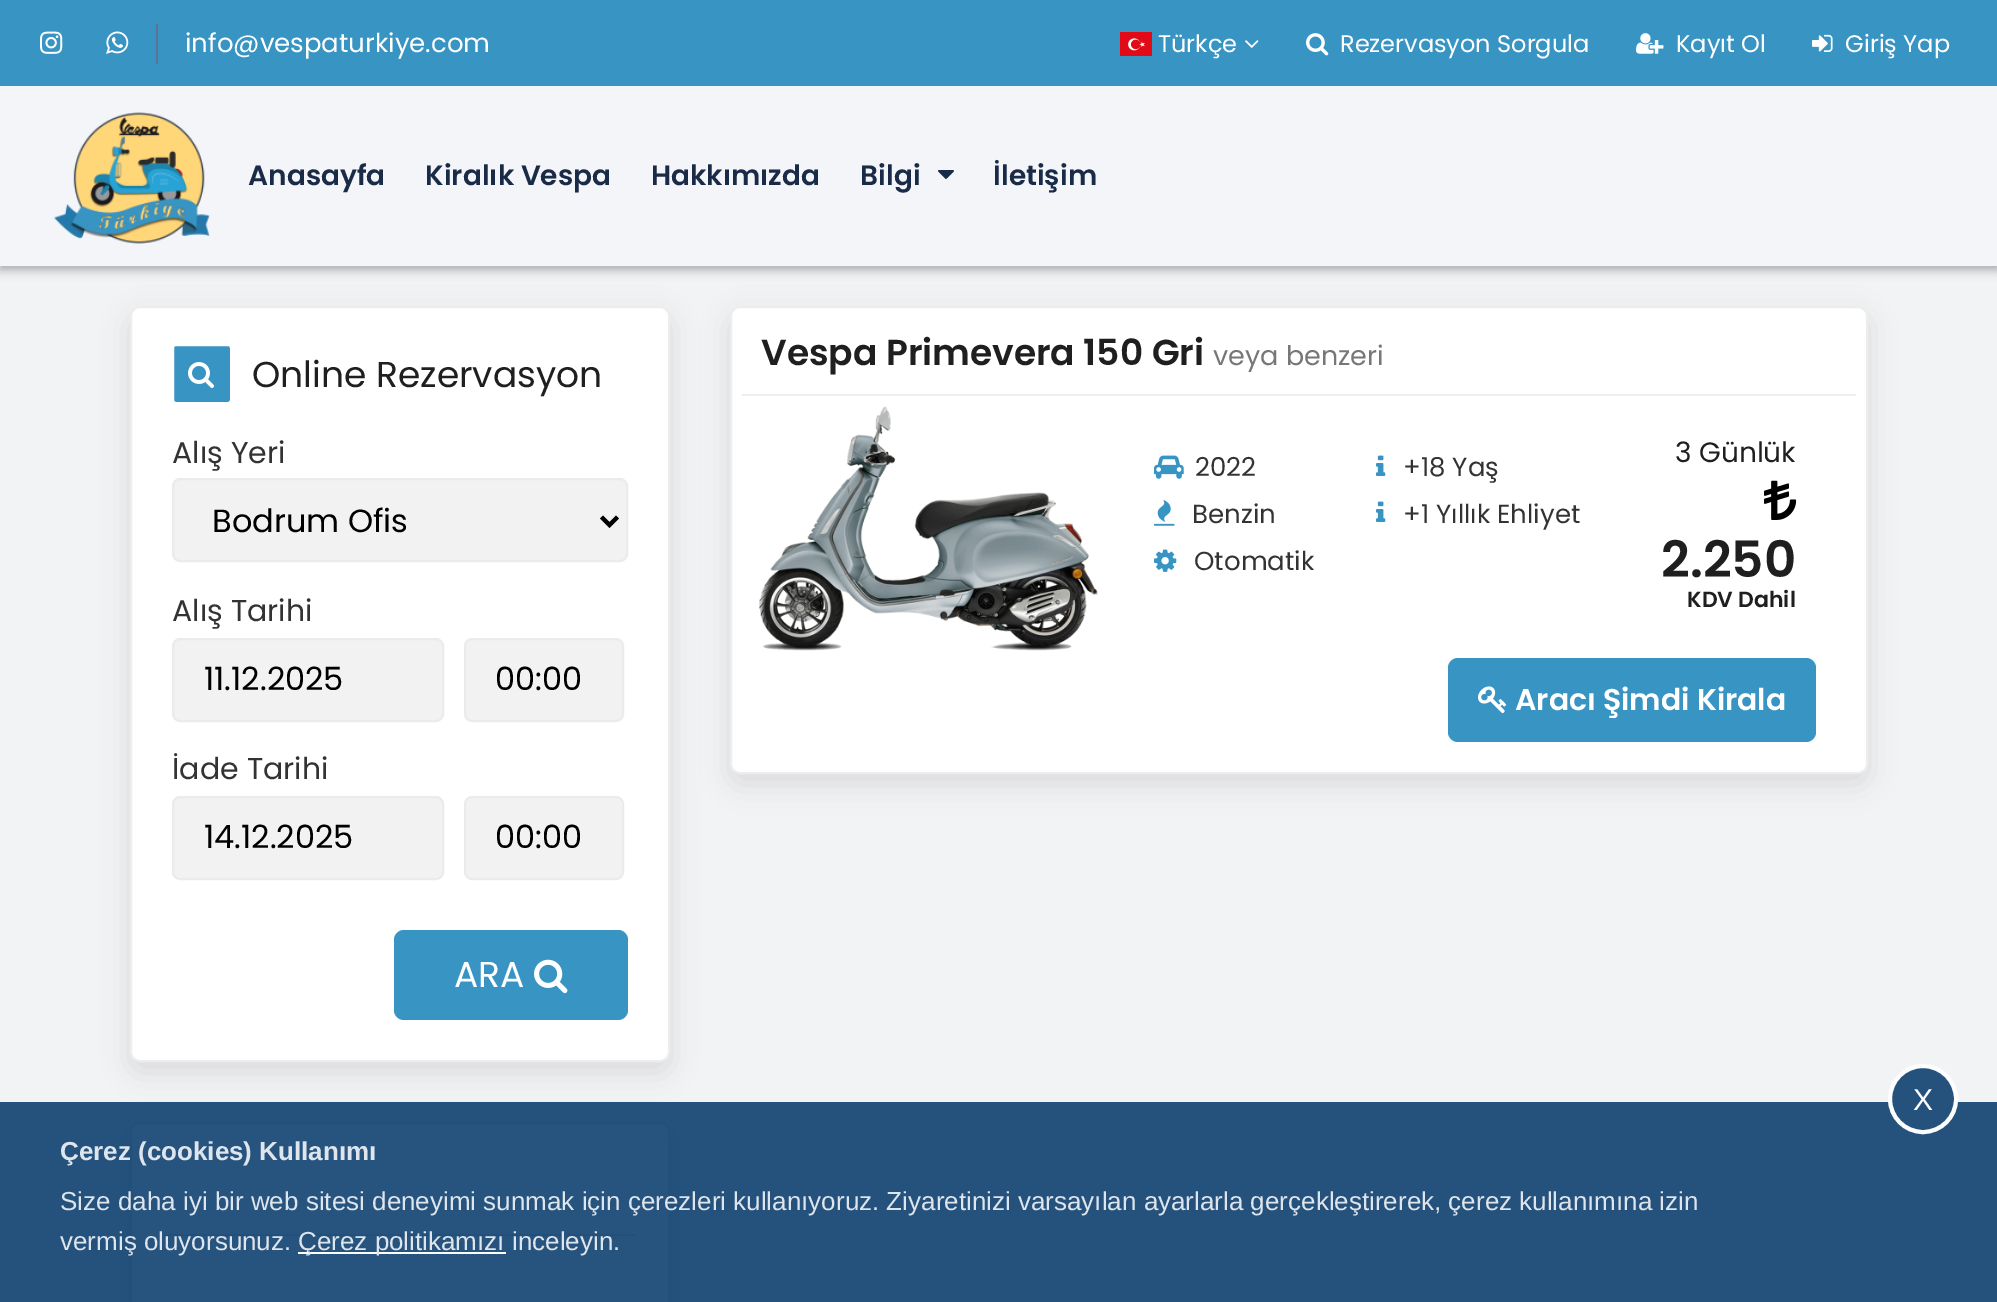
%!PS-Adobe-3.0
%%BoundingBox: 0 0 1997 1302
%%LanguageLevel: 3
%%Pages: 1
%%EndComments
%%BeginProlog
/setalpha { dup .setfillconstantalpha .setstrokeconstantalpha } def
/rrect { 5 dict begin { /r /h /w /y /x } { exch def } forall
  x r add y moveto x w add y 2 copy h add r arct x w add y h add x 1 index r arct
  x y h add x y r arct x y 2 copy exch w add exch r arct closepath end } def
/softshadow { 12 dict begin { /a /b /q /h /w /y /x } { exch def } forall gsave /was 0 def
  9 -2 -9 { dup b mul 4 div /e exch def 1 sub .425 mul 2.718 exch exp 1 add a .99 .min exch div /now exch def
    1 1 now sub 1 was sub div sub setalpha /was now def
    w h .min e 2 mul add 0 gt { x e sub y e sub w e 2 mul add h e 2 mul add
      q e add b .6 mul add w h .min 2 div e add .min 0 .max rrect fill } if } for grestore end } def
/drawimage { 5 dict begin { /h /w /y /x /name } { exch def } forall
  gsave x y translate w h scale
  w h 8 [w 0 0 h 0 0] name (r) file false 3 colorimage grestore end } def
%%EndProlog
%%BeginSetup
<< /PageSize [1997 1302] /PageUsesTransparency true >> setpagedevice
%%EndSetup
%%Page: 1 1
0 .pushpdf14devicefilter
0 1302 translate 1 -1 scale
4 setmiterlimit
0.949 0.953 0.961 setrgbcolor
0 0 1997 1302 rectfill
0 setgray
0 4 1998 266 0 5 0.3 softshadow
0.957 0.961 0.976 setrgbcolor
0 86 1997 180 rectfill
0.216 0.58 0.765 setrgbcolor
0 0 1997 86 rectfill
(images/1.raw) 40 31 23 23 drawimage
(images/2.raw) 106 31 23 23 drawimage
0.373 0.443 0.565 setrgbcolor
156 24 2 40 rectfill
(images/3.raw) 1120 32 32 24 drawimage
(images/4.raw) 1245 40 14 8 drawimage
(images/5.raw) 1306 33 23 23 drawimage
(images/6.raw) 1636 33 28 21 drawimage
(images/7.raw) 1812 34 21 18 drawimage
(images/8.raw) 54 112 156 132 drawimage
(images/9.raw) 938 170 16 9 drawimage
0 setgray
130 316 540 756 10 14 0.1 softshadow
1 setgray
131 307 538 754 9 rrect gsave fill grestore
0.929 setgray
2 setlinewidth
stroke
0.216 0.58 0.765 setrgbcolor
173 345 58 58 3 rrect gsave fill grestore
1 setgray
stroke
(images/10.raw) 188 362 26 26 drawimage
0.949 setgray
173 479 454 82 7 rrect gsave fill grestore
0.922 setgray
stroke
0 setgray
4 setlinewidth
newpath 601.5 517 moveto 609.5 525 lineto 617.5 517 lineto stroke
0.949 setgray
173 639 270 82 7 rrect gsave fill grestore
0.922 setgray
2 setlinewidth
stroke
0.949 setgray
465 639 158 82 7 rrect gsave fill grestore
0.922 setgray
stroke
0.949 setgray
173 797 270 82 7 rrect gsave fill grestore
0.922 setgray
stroke
0.949 setgray
465 797 158 82 7 rrect gsave fill grestore
0.922 setgray
stroke
0.216 0.58 0.765 setrgbcolor
394 930 234 90 10 rrect fill
(images/11.raw) 534 959 34 35 drawimage
0 setgray
130 1132 540 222 10 14 0.1 softshadow
1 setgray
131 1123 538 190 9 rrect gsave fill grestore
0.906 setgray
stroke
164 1234 472 2 rectfill
0 setgray
730 316 1138 468 10 14 0.1 softshadow
1 setgray
731 307 1136 466 9 rrect gsave fill grestore
0.929 setgray
stroke
0.933 setgray
742 394 1114 2 rectfill
(images/12.raw) 759 406 339 245 drawimage
(images/13.raw) 1154 455 30 24 drawimage
(images/14.raw) 1154 499 21 27 drawimage
(images/15.raw) 1154 549 23 23 drawimage
(images/16.raw) 1376 455 10 21 drawimage
(images/16.raw) 1376 501 10 21 drawimage
(images/17.raw) 1764 480 33 40 drawimage
0.216 0.58 0.765 setrgbcolor
1448 658 368 84 10 rrect fill
(images/18.raw) 1478 686 29 28 drawimage
0.85 setalpha
0 0.212 0.408 setrgbcolor
0 1102 1997 200 rectfill
1 setalpha
0.141 0.322 0.49 setrgbcolor
newpath 1923 1099 33 0 360 arc closepath gsave fill grestore
0.992 0.992 0.996 setrgbcolor
4 setlinewidth
stroke
1 setgray
298 1252 208 2 rectfill
/Poppins-Regular [26 0 0 -26 0 0] selectfont
185 52 moveto (info@vespaturkiye.com) show
/Poppins-Regular [24 0 0 -24 0 0] selectfont
1158 52 moveto (Türkçe) show
1340 52 moveto (Rezervasyon Sorgula) show
1676 52 moveto (Kayıt Ol) show
1845 52 moveto (Giriş Yap) show
/Poppins-SemiBold [28 0 0 -28 0 0] selectfont
0.102 0.169 0.282 setrgbcolor
248 185 moveto (Anasayfa) show
425 185 moveto (Kiralık Vespa) show
651 185 moveto (Hakkımızda) show
860 185 moveto (Bilgi) show
993 185 moveto (İletişim) show
/Poppins-Regular [36 0 0 -36 0 0] selectfont
0.122 setgray
252 387 moveto (Online Rezervasyon) show
/Poppins-Regular [30 0 0 -30 0 0] selectfont
0.2 setgray
172 463 moveto (Alış Yeri) show
/Poppins-Regular [32 0 0 -32 0 0] selectfont
0 setgray
212 532 moveto (Bodrum Ofis) show
/Poppins-Regular [30 0 0 -30 0 0] selectfont
0.2 setgray
172 621 moveto (Alış Tarihi) show
/Poppins-Regular [32 0 0 -32 0 0] selectfont
0 setgray
204 690 moveto (11.12.2025) show
495 690 moveto (00:00) show
/Poppins-Regular [30 0 0 -30 0 0] selectfont
0.2 setgray
172 779 moveto (İade Tarihi) show
/Poppins-Regular [32 0 0 -32 0 0] selectfont
0 setgray
204 848 moveto (14.12.2025) show
495 848 moveto (00:00) show
/Poppins-Regular [36 0 0 -36 0 0] selectfont
1 setgray
454 987 moveto (ARA) show
/Poppins-SemiBold [36 0 0 -36 0 0] selectfont
0.122 setgray
761 365 moveto (Vespa Primevera 150 Gri) show
/Poppins-Regular [27 0 0 -27 0 0] selectfont
0.467 setgray
1213 365 moveto (veya benzeri) show
/Poppins-Regular [26 0 0 -26 0 0] selectfont
0.2 setgray
1195 476 moveto (2022) show
1192 523 moveto (Benzin) show
1194 570 moveto (Otomatik) show
1403 476 moveto (+18 Yaş) show
1403 523 moveto (+1 Yıllık Ehliyet) show
/Poppins-Regular [28 0 0 -28 0 0] selectfont
0.122 setgray
1675 462 moveto (3 Günlük) show
/Poppins-SemiBold [50 0 0 -50 0 0] selectfont
1661 577 moveto (2.250) show
/Poppins-SemiBold [22 0 0 -22 0 0] selectfont
1687 607 moveto (KDV Dahil) show
/Poppins-SemiBold [30 0 0 -30 0 0] selectfont
1 setgray
1515 710 moveto (Aracı Şimdi Kirala) show
/LiberationSans-Regular [30 0 0 -30 0 0] selectfont
1913 1110 moveto (X) show
/LiberationSans-Bold [26 0 0 -26 0 0] selectfont
0.871 0.898 0.925 setrgbcolor
60 1160 moveto (Çerez \(cookies\) Kullanımı) show
/LiberationSans-Regular [26 0 0 -26 0 0] selectfont
60 1210 moveto (Size daha iyi bir web sitesi deneyimi sunmak için çerezleri kullanıyoruz. Ziyaretinizi varsayılan ayarlarla gerçekleştirerek, çerez kullanımına izin) show
60 1250 moveto (vermiş oluyorsunuz.) show
298 1250 moveto (Çerez politikamızı) show
512 1250 moveto (inceleyin.) show
.poppdf14devicefilter showpage
%%EOF
